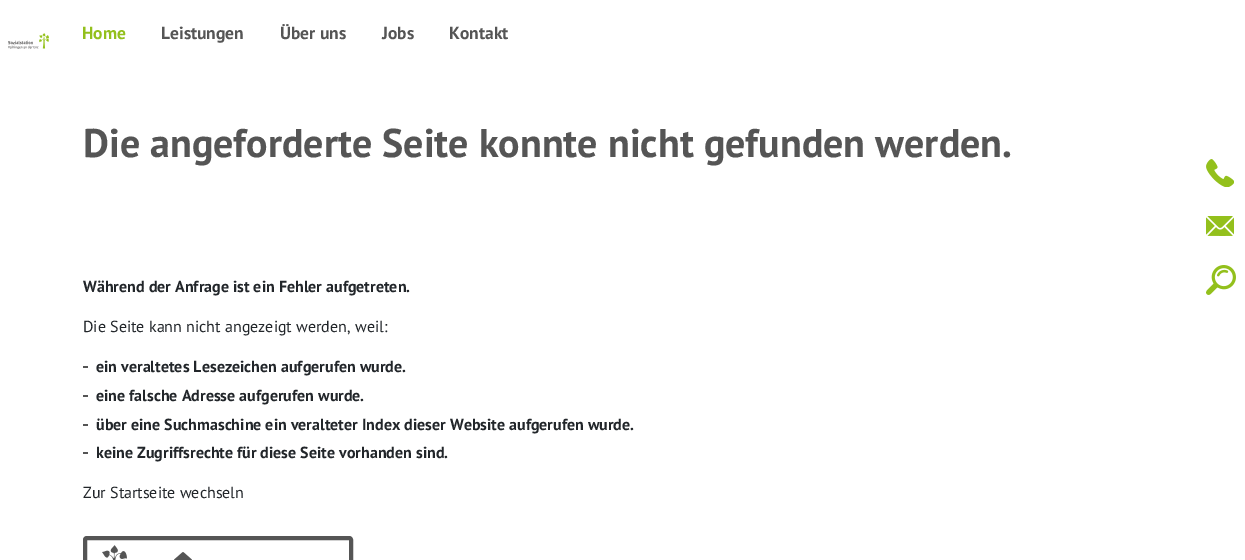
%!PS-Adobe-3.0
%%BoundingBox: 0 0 1245 560
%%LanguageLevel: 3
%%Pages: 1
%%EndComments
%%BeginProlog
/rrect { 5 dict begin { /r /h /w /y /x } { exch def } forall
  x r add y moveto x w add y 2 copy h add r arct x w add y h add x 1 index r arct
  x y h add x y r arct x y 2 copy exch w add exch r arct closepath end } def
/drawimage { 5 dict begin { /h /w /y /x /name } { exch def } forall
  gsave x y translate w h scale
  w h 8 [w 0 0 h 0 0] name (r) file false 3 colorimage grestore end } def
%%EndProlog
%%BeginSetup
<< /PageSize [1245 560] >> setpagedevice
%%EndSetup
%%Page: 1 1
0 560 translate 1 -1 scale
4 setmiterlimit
1 setgray
0 0 1245 560 rectfill
(images/1.raw) 8 33 41 16 drawimage
(images/2.raw) 1206 159 28 28 drawimage
(images/3.raw) 1206 216 28 20 drawimage
(images/4.raw) 1206 265 30 30 drawimage
0.333 setgray
83 366 5 2 rectfill
83 395 5 2 rectfill
83 424 5 2 rectfill
83 452 5 2 rectfill
(images/5.raw) 102 545 25 15 drawimage
4 setlinewidth
85 538 266 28 2 rrect stroke
(images/6.raw) 174 552 18 8 drawimage
/PTSans-Bold [17.5 0 0 -17.5 0 0] selectfont
0.576 0.753 0.11 setrgbcolor
82 39 moveto (Home) show
0.333 setgray
161 39 moveto (Leistungen) show
280 39 moveto (Über uns) show
382 39 moveto (Jobs) show
449 39 moveto (Kontakt) show
/PTSans-Bold [40 0 0 -40 0 0] selectfont
83 157 moveto (Die angeforderte Seite konnte nicht gefunden werden.) show
/PTSans-Bold [16 0 0 -16 0 0] selectfont
0.133 0.149 0.165 setrgbcolor
83 292 moveto (Während der Anfrage ist ein Fehler aufgetreten.) show
/PTSans-Regular [16 0 0 -16 0 0] selectfont
83 332 moveto (Die Seite kann nicht angezeigt werden, weil:) show
/PTSans-Bold [16 0 0 -16 0 0] selectfont
96 372 moveto (ein veraltetes Lesezeichen aufgerufen wurde.) show
96 401 moveto (eine falsche Adresse aufgerufen wurde.) show
96 430 moveto (über eine Suchmaschine ein veralteter Index dieser Website aufgerufen wurde.) show
96 458 moveto (keine Zugriffsrechte für diese Seite vorhanden sind.) show
/PTSans-Regular [16 0 0 -16 0 0] selectfont
83 498 moveto (Zur Startseite wechseln) show
showpage
%%EOF
